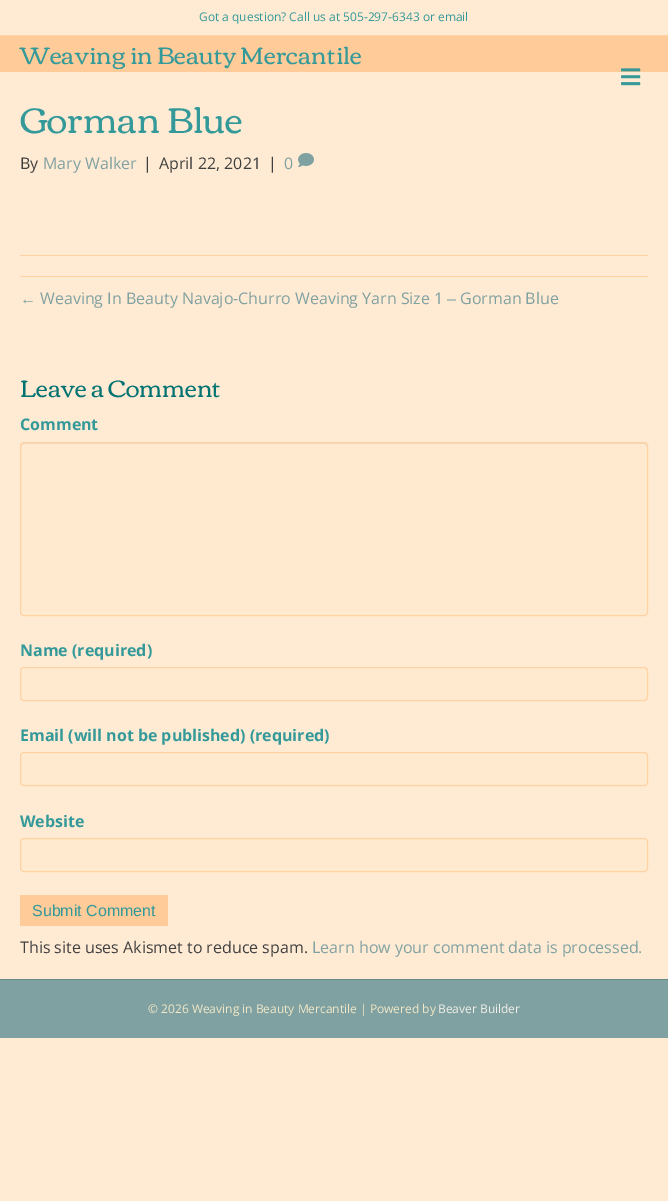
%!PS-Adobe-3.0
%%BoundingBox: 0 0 668 1201
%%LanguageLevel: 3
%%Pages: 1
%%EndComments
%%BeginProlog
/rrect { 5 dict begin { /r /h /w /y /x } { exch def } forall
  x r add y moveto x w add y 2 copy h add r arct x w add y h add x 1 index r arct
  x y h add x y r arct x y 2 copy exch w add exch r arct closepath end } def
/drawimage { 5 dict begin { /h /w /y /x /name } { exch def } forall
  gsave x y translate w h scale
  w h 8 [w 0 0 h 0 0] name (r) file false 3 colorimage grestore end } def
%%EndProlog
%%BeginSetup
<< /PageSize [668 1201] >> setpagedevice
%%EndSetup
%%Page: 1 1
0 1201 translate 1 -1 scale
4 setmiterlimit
1 0.922 0.831 setrgbcolor
0 0 668 1201 rectfill
1 0.827 0.631 setrgbcolor
0 35 668 1 rectfill
1 0.8 0.6 setrgbcolor
0 36 668 36 rectfill
(images/1.raw) 621 68 20 18 drawimage
(images/2.raw) 298 153 16 14 drawimage
1 0.827 0.631 setrgbcolor
20 255 628 1 rectfill
20 276 628 1 rectfill
1 0.914 0.812 setrgbcolor
20 442 628 174 4 rrect fill
0.925 0.847 0.749 setrgbcolor
newpath 24 444 moveto 644 444 lineto 646 444 647 445 647 447 curveto 647 446 lineto 647 444 646 443 644 443 curveto 24 443 lineto 22 443 21 444 21 446 curveto 21 447 lineto 21 445 22 444 24 444 curveto closepath fill
1 0.827 0.631 setrgbcolor
20.5 442.5 627 173 3.5 rrect stroke
1 0.914 0.812 setrgbcolor
20.5 667.5 627 33 3.5 rrect gsave fill grestore
1 0.827 0.631 setrgbcolor
stroke
1 0.914 0.812 setrgbcolor
20.5 752.5 627 33 3.5 rrect gsave fill grestore
1 0.827 0.631 setrgbcolor
stroke
1 0.914 0.812 setrgbcolor
20.5 838.5 627 33 3.5 rrect gsave fill grestore
1 0.827 0.631 setrgbcolor
stroke
1 0.8 0.6 setrgbcolor
20 895 148 31 rectfill
0.502 0.631 0.631 setrgbcolor
0 980 668 58 rectfill
0.396 0.537 0.537 setrgbcolor
0 979 668 1 rectfill
/OpenSans-Regular [12 0 0 -12 0 0] selectfont
0.2 0.6 0.6 setrgbcolor
199 21 moveto (Got a question? Call us at 505-297-6343 or email) show
/Corben-Regular [24 0 0 -24 0 0] selectfont
20 64 moveto (Weaving in Beauty Mercantile) show
/Corben-Regular [36 0 0 -36 0 0] selectfont
20 133 moveto (Gorman Blue) show
/OpenSans-Regular [16 0 0 -16 0 0] selectfont
0.247 setgray
20 169 moveto (By) show
0.502 0.631 0.631 setrgbcolor
43 169 moveto (Mary Walker) show
0.247 setgray
143 169 moveto (|) show
159 169 moveto (April 22, 2021) show
268 169 moveto (|) show
0.502 0.631 0.631 setrgbcolor
284 169 moveto (0) show
/LiberationSans-Regular [16 0 0 -16 0 0] selectfont
20 304 moveto (←) show
/OpenSans-Regular [16 0 0 -16 0 0] selectfont
40 304 moveto (Weaving In Beauty Navajo-Churro Weaving Yarn Size 1) show
/LiberationSans-Regular [16 0 0 -16 0 0] selectfont
447 304 moveto (–) show
/OpenSans-Regular [16 0 0 -16 0 0] selectfont
460 304 moveto (Gorman Blue) show
/Corben-Regular [24 0 0 -24 0 0] selectfont
0 0.447 0.447 setrgbcolor
20 397 moveto (Leave a Comment) show
/OpenSans-Bold [16 0 0 -16 0 0] selectfont
0.2 0.6 0.6 setrgbcolor
20 430 moveto (Comment) show
20 656 moveto (Name \(required\)) show
20 741 moveto (Email \(will not be published\) \(required\)) show
20 827 moveto (Website) show
/LiberationSans-Regular [16 0 0 -16 0 0] selectfont
32 916 moveto (Submit Comment) show
/OpenSans-Regular [16 0 0 -16 0 0] selectfont
0.247 setgray
20 953 moveto (This site uses Akismet to reduce spam.) show
0.502 0.631 0.631 setrgbcolor
312 953 moveto (Learn how your comment data is processed.) show
/OpenSans-Regular [12 0 0 -12 0 0] selectfont
0.941 0.91 0.78 setrgbcolor
148 1013 moveto (© 2026 Weaving in Beauty Mercantile | Powered by) show
0.949 0.941 0.918 setrgbcolor
438 1013 moveto (Beaver Builder) show
showpage
%%EOF
